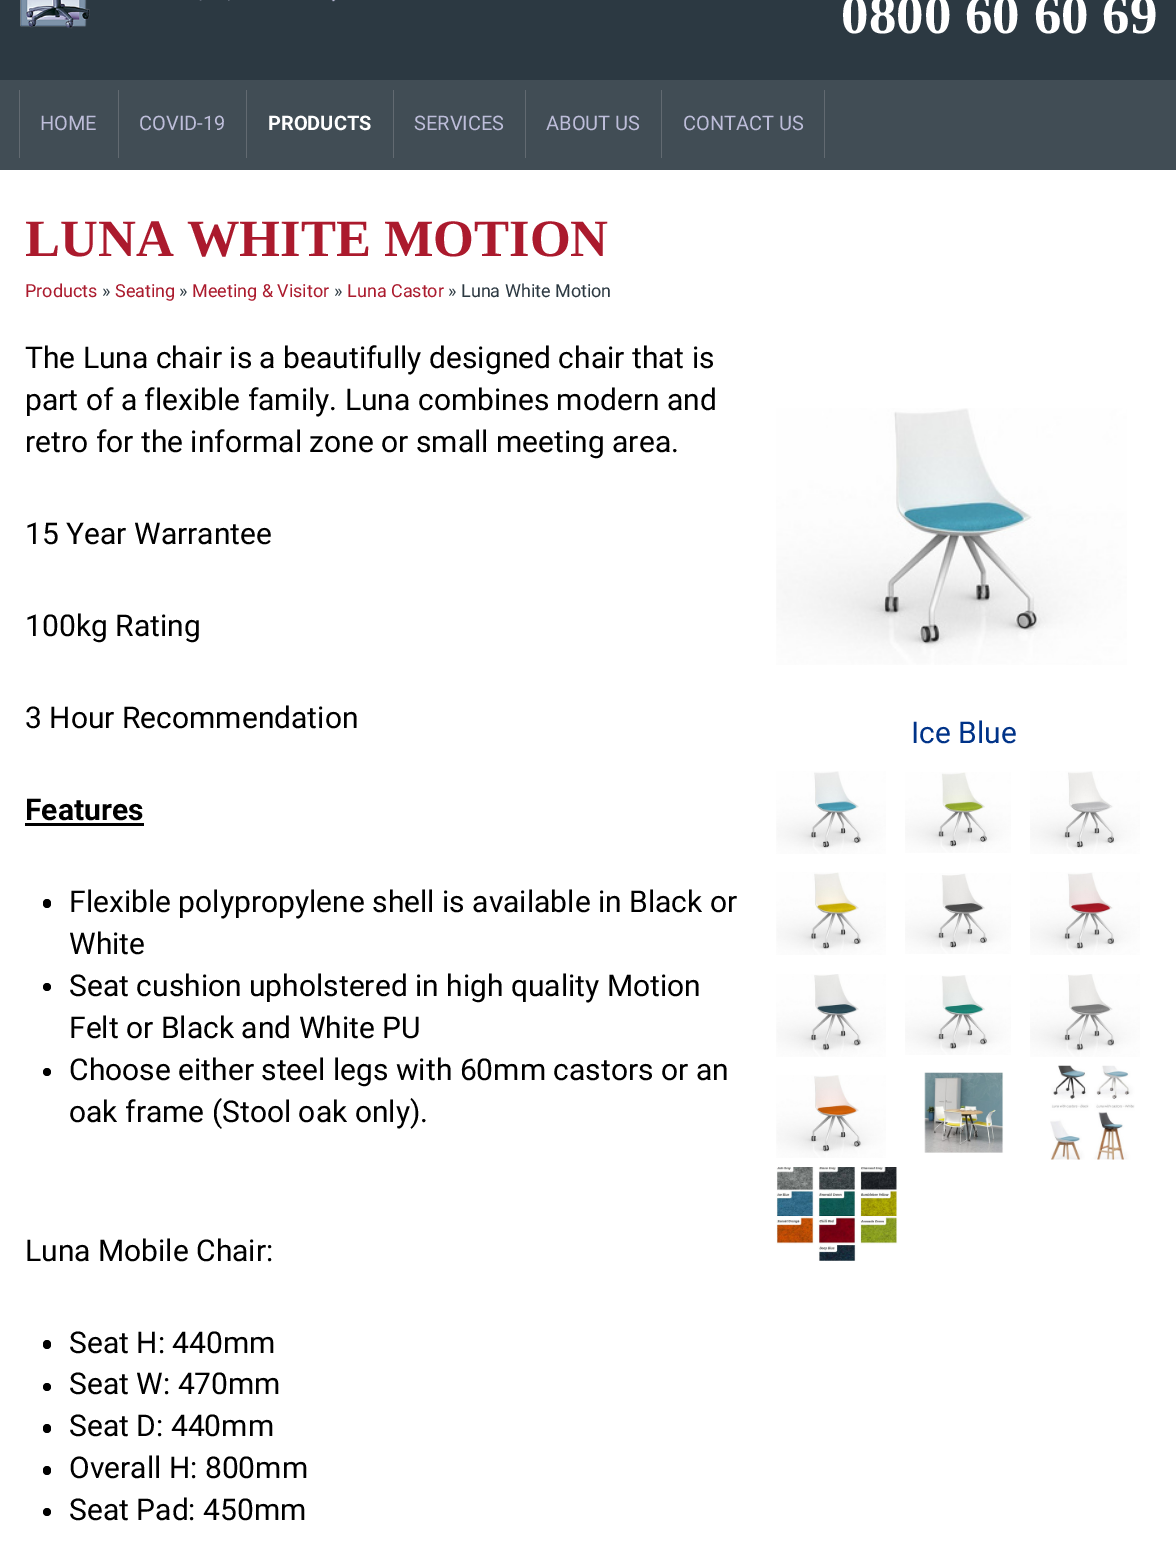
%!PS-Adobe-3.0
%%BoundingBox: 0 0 1176 1556
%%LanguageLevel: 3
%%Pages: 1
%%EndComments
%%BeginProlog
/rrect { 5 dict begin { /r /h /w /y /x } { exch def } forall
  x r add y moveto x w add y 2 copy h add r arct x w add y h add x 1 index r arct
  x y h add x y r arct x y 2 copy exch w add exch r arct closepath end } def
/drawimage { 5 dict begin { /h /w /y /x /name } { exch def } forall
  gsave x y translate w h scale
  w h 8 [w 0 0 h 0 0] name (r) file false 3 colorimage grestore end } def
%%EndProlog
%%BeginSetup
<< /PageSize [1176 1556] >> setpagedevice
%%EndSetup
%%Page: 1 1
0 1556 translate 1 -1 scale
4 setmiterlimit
1 setgray
0 0 1176 1556 rectfill
0.173 0.224 0.259 setrgbcolor
0 0 1176 80 rectfill
(images/1.raw) 20 0 316 29 drawimage
0.255 0.302 0.333 setrgbcolor
0 80 1176 90 rectfill
0.384 0.416 0.443 setrgbcolor
19 90 1 68 rectfill
118 90 1 68 rectfill
246 90 1 68 rectfill
393 90 1 68 rectfill
525 90 1 68 rectfill
824 90 1 68 rectfill
661 90 1 68 rectfill
(images/2.raw) 776 408 351 257 drawimage
(images/3.raw) 776 771 110 83 drawimage
(images/4.raw) 905 772 106 81 drawimage
(images/5.raw) 1030 771 110 83 drawimage
(images/6.raw) 776 872 110 83 drawimage
(images/7.raw) 905 873 106 81 drawimage
(images/8.raw) 1030 872 110 83 drawimage
(images/9.raw) 776 974 110 83 drawimage
(images/10.raw) 905 975 106 80 drawimage
(images/11.raw) 1030 974 110 83 drawimage
(images/12.raw) 776 1075 110 83 drawimage
(images/13.raw) 924 1072 80 81 drawimage
(images/14.raw) 1050 1065 85 95 drawimage
(images/15.raw) 776 1167 122 94 drawimage
0 setgray
25 823 119 3 rectfill
43 899 8 9 4 rrect fill
newpath 47 987 4 0 360 arc closepath fill
newpath 47 1072 4 0 360 arc closepath fill
43 1340 8 9 4 rrect fill
newpath 47 1387 4 0 360 arc closepath fill
43 1424 8 9 4 rrect fill
43 1466 8 9 4 rrect fill
newpath 47 1512 4 0 360 arc closepath fill
/LiberationSerif-Bold [55 0 0 -55 0 0] selectfont
1 setgray
841 33 moveto (0800 60 60 69) show
/Roboto-Regular [20 0 0 -20 0 0] selectfont
0.741 0.741 0.851 setrgbcolor
40 130 moveto (HOME) show
139 130 moveto (COVID-19) show
/Roboto-Bold [20 0 0 -20 0 0] selectfont
1 setgray
268 130 moveto (PRODUCTS) show
/Roboto-Regular [20 0 0 -20 0 0] selectfont
0.741 0.741 0.851 setrgbcolor
414 130 moveto (SERVICES) show
546 130 moveto (ABOUT US) show
683 130 moveto (CONTACT US) show
/LiberationSerif-Bold [52.5 0 0 -52.5 0 0] selectfont
0.671 0.102 0.176 setrgbcolor
25 256 moveto (LUNA WHITE MOTION) show
/Roboto-Regular [18 0 0 -18 0 0] selectfont
25 297 moveto (Products) show
0.173 0.224 0.259 setrgbcolor
102 297 moveto (») show
0.671 0.102 0.176 setrgbcolor
115 297 moveto (Seating) show
0.173 0.224 0.259 setrgbcolor
179 297 moveto (») show
0.671 0.102 0.176 setrgbcolor
192 297 moveto (Meeting & Visitor) show
0.173 0.224 0.259 setrgbcolor
334 297 moveto (») show
0.671 0.102 0.176 setrgbcolor
347 297 moveto (Luna Castor) show
0.173 0.224 0.259 setrgbcolor
448 297 moveto (» Luna White Motion) show
/Roboto-Regular [30 0 0 -30 0 0] selectfont
0 setgray
25 368 moveto (The Luna chair is a beautifully designed chair that is) show
25 410 moveto (part of a flexible family. Luna combines modern and) show
25 452 moveto (retro for the informal zone or small meeting area.) show
25 544 moveto (15 Year Warrantee) show
25 636 moveto (100kg Rating) show
25 728 moveto (3 Hour Recommendation) show
0 0.2 0.533 setrgbcolor
911 743 moveto (Ice Blue) show
/Roboto-Bold [30 0 0 -30 0 0] selectfont
0 setgray
25 820 moveto (Features) show
/Roboto-Regular [30 0 0 -30 0 0] selectfont
69 912 moveto (Flexible polypropylene shell is available in Black or) show
69 954 moveto (White) show
69 996 moveto (Seat cushion upholstered in high quality Motion) show
69 1038 moveto (Felt or Black and White PU) show
69 1080 moveto (Choose either steel legs with 60mm castors or an) show
69 1122 moveto (oak frame \(Stool oak only\).) show
25 1261 moveto (Luna Mobile Chair:) show
69 1353 moveto (Seat H: 440mm) show
69 1394 moveto (Seat W: 470mm) show
69 1436 moveto (Seat D: 440mm) show
69 1478 moveto (Overall H: 800mm) show
69 1520 moveto (Seat Pad: 450mm) show
showpage
%%EOF
